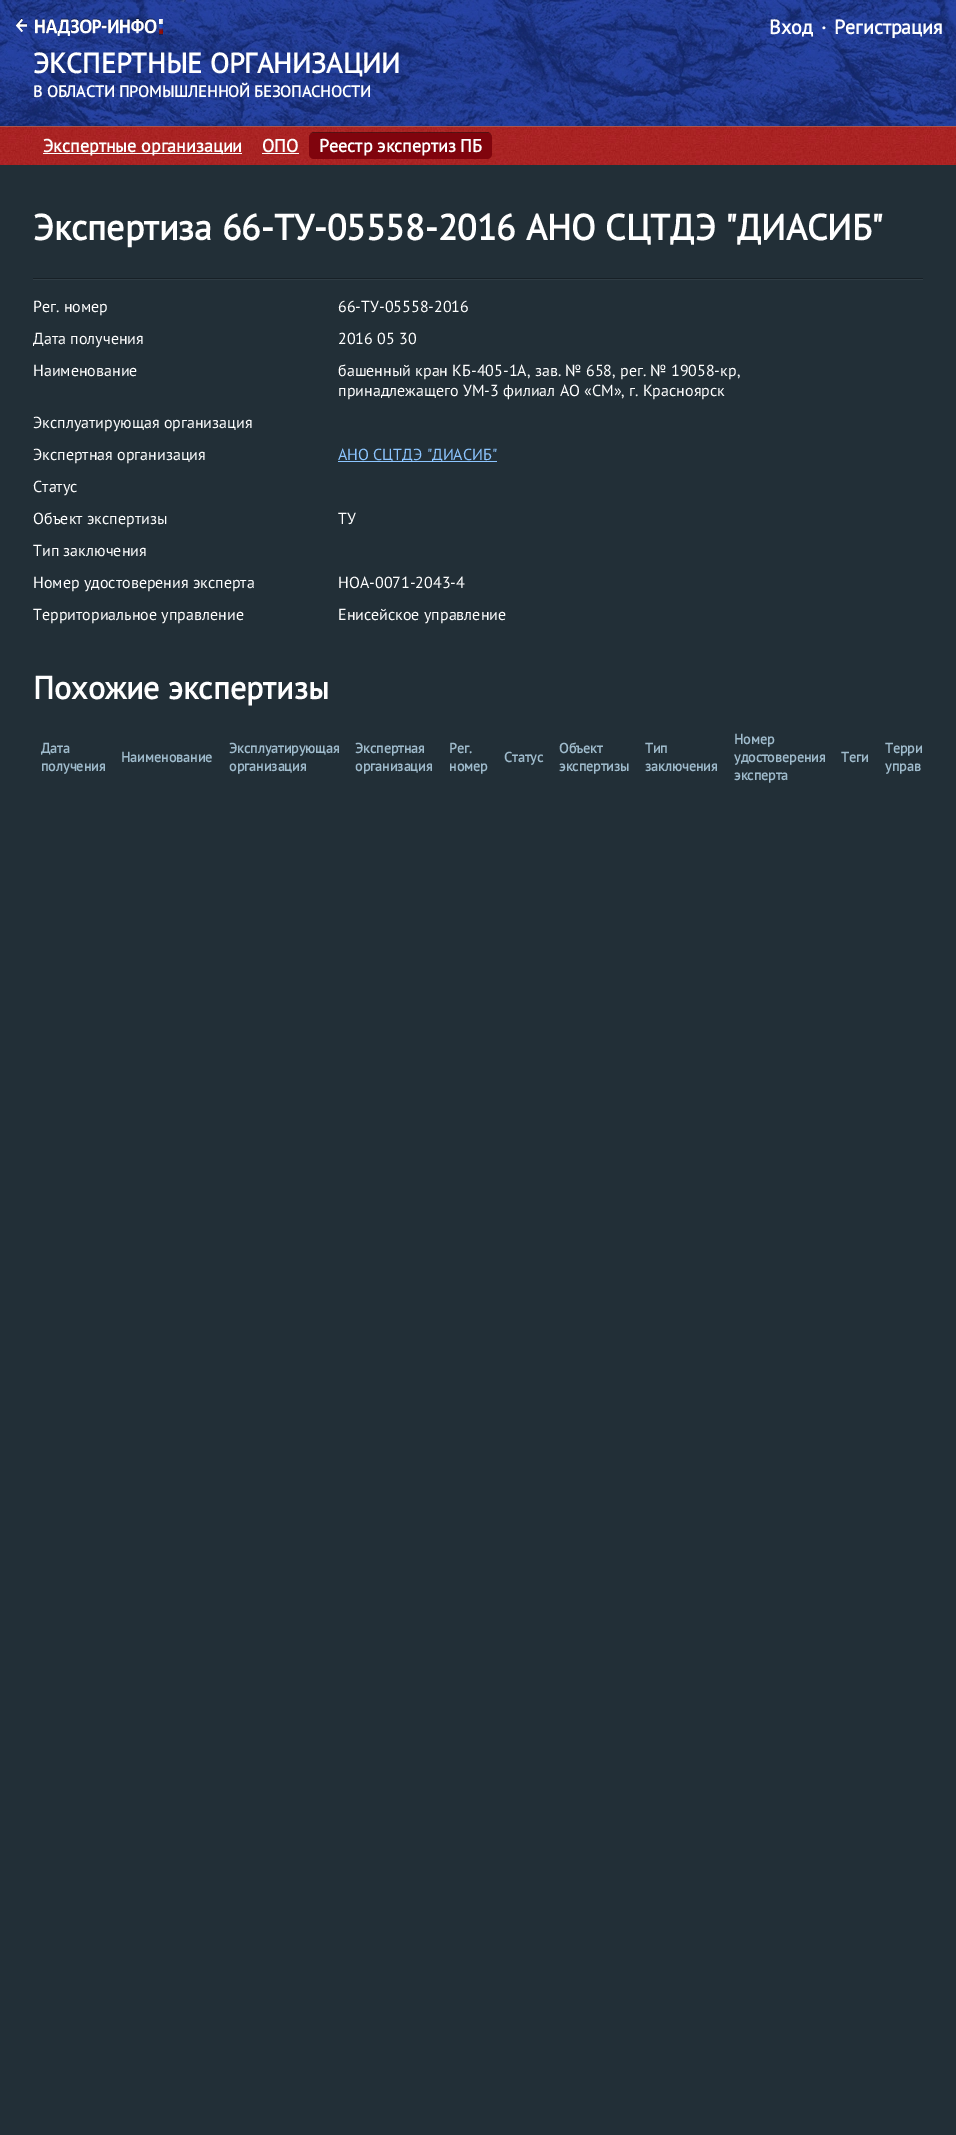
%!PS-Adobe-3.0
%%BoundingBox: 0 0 956 2135
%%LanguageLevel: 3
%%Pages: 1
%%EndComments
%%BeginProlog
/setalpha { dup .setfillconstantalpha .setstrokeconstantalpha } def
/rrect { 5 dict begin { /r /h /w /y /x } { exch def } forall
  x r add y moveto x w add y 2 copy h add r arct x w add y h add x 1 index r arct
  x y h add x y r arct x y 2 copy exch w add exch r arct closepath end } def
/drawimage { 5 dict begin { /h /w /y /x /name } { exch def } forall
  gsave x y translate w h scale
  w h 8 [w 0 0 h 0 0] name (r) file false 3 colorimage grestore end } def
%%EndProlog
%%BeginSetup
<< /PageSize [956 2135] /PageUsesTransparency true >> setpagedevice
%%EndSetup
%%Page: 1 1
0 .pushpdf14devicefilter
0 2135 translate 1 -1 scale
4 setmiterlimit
0.133 0.184 0.216 setrgbcolor
0 0 956 2135 rectfill
(images/1.raw) 0 0 956 126 drawimage
(images/2.raw) 16 18 11 14 drawimage
(images/3.raw) 35 18 128 18 drawimage
(images/4.raw) 0 127 956 38 drawimage
0.678 0.333 0.302 setrgbcolor
0 126 956 1 rectfill
1 setgray
43 153 199 1 rectfill
262 153 37 1 rectfill
0.5 setalpha
0 setgray
newpath 314 132 moveto 311 132 309 135 309 138 curveto 309 135 311 133 314 133 curveto 487 133 lineto 490 133 492 135 492 138 curveto 492 135 490 132 487 132 curveto closepath fill
1 setalpha
0.502 0.016 0.051 setrgbcolor
309 133 183 26 5 rrect fill
0.188 0.239 0.271 setrgbcolor
33 279 890 1 rectfill
0.09 0.125 0.149 setrgbcolor
33 278 890 1 rectfill
0.549 0.773 1 setrgbcolor
338 461 159 1 rectfill
/PTSans-Bold [20 0 0 -20 0 0] selectfont
1 setgray
769 34 moveto (Вход) show
821 34 moveto (·) show
834 34 moveto (Регистрация) show
/PTSans-Bold [28 0 0 -28 0 0] selectfont
33 73 moveto (ЭКСПЕРТНЫЕ ОРГАНИЗАЦИИ) show
/PTSans-Bold [16 0 0 -16 0 0] selectfont
33 97 moveto (В ОБЛАСТИ ПРОМЫШЛЕННОЙ БЕЗОПАСНОСТИ) show
/PTSans-Bold [18 0 0 -18 0 0] selectfont
43 152 moveto (Экспертные организации) show
262 152 moveto (ОПО) show
319 152 moveto (Реестр экспертиз ПБ) show
/PTSans-Bold [36 0 0 -36 0 0] selectfont
33 240 moveto (Экспертиза 66-ТУ-05558-2016 АНО СЦТДЭ "ДИАСИБ") show
/PTSans-Regular [16 0 0 -16 0 0] selectfont
33 312 moveto (Рег. номер) show
338 312 moveto (66-ТУ-05558-2016) show
33 344 moveto (Дата получения) show
338 344 moveto (2016 05 30) show
33 376 moveto (Наименование) show
338 376 moveto (башенный кран КБ-405-1А, зав. № 658, рег. № 19058-кр,) show
338 396 moveto (принадлежащего УМ-3 филиал АО «СМ», г. Красноярск) show
33 428 moveto (Эксплуатирующая организация) show
33 460 moveto (Экспертная организация) show
0.549 0.773 1 setrgbcolor
338 460 moveto (АНО СЦТДЭ "ДИАСИБ") show
1 setgray
33 492 moveto (Статус) show
33 524 moveto (Объект экспертизы) show
338 524 moveto (ТУ) show
33 556 moveto (Тип заключения) show
33 588 moveto (Номер удостоверения эксперта) show
338 588 moveto (НОА-0071-2043-4) show
33 620 moveto (Территориальное управление) show
338 620 moveto (Енисейское управление) show
/PTSans-Bold [32 0 0 -32 0 0] selectfont
33 699 moveto (Похожие экспертизы) show
/PTSans-Bold [14 0 0 -14 0 0] selectfont
0.624 0.733 0.8 setrgbcolor
41 753 moveto (Дата) show
41 771 moveto (получения) show
121 762 moveto (Наименование) show
229 753 moveto (Эксплуатирующая) show
229 771 moveto (организация) show
355 753 moveto (Экспертная) show
355 771 moveto (организация) show
449 753 moveto (Рег.) show
449 771 moveto (номер) show
504 762 moveto (Статус) show
559 753 moveto (Объект) show
559 771 moveto (экспертизы) show
645 753 moveto (Тип) show
645 771 moveto (заключения) show
734 744 moveto (Номер) show
734 762 moveto (удостоверения) show
734 780 moveto (эксперта) show
841 762 moveto (Теги) show
885 753 moveto (Терри) show
885 771 moveto (управ) show
.poppdf14devicefilter showpage
%%EOF
